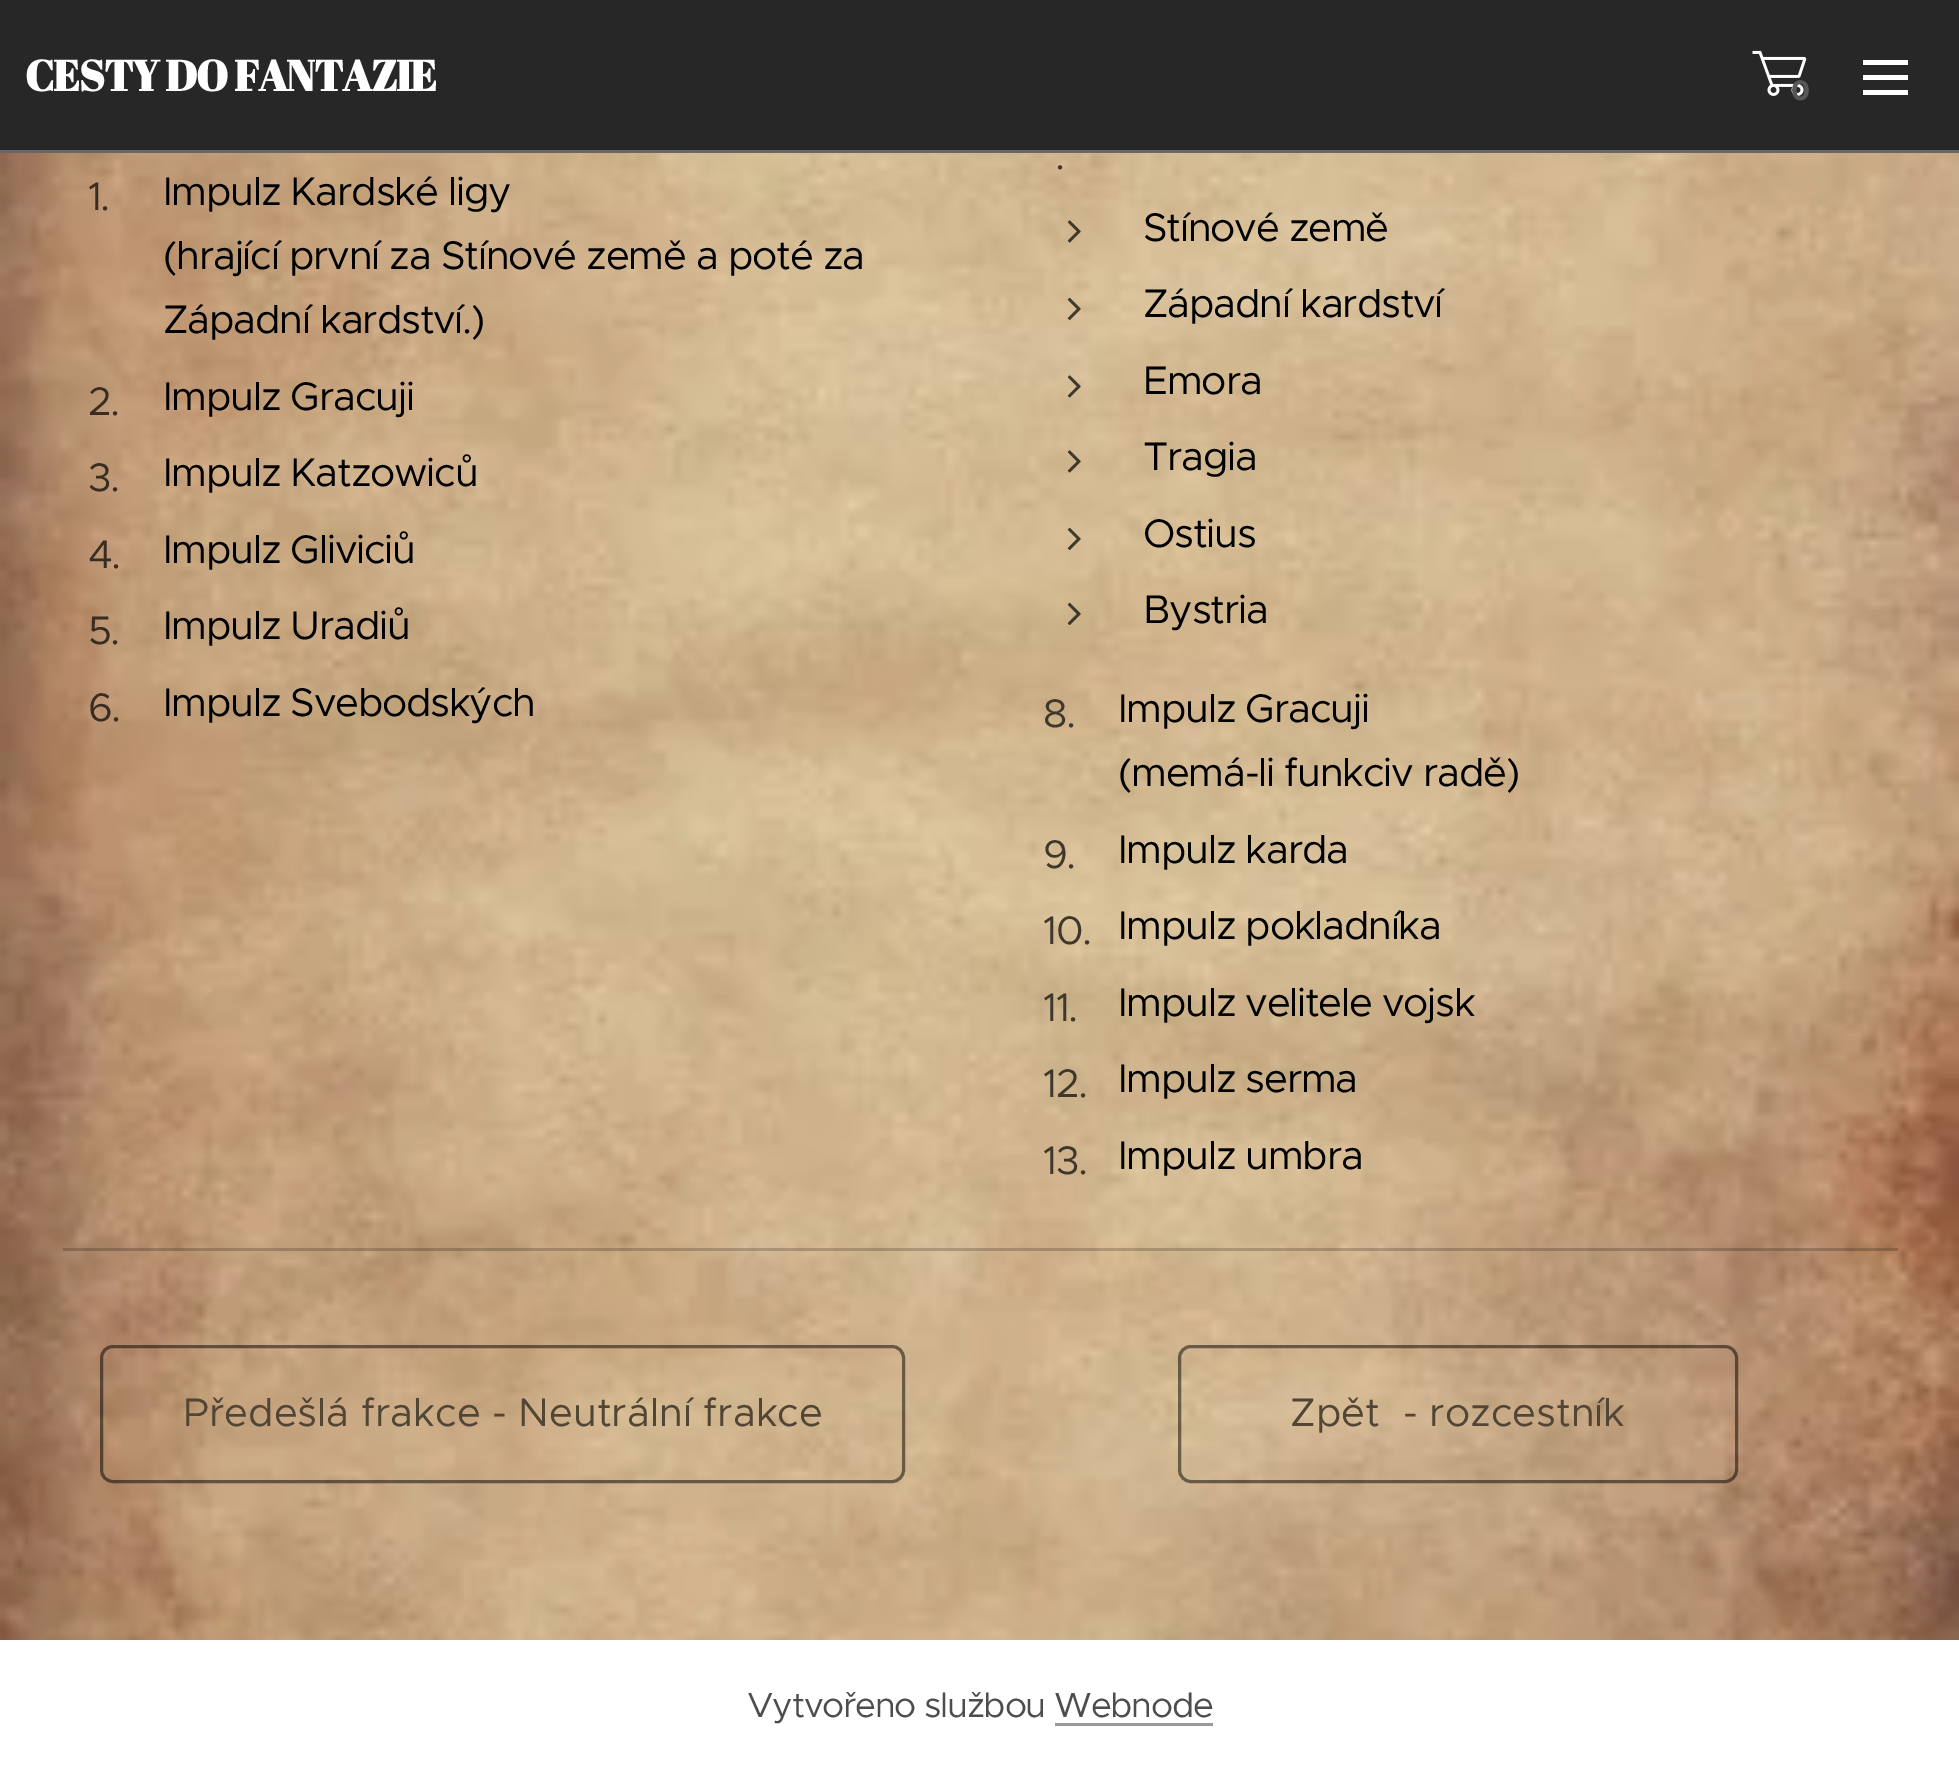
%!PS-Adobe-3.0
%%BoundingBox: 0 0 1959 1770
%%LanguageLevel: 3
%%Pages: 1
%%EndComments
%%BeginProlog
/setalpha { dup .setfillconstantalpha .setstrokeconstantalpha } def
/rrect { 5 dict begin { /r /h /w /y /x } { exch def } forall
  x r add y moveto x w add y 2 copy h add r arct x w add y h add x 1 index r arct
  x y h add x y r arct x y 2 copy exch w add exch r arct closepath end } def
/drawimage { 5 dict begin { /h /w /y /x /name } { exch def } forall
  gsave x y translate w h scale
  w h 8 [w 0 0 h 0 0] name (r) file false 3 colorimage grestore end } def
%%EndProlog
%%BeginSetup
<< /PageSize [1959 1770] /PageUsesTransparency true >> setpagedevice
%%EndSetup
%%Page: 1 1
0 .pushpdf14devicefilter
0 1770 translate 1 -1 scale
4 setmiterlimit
1 setgray
0 0 1959 1770 rectfill
0.153 setgray
0 0 1959 150 rectfill
0.408 setgray
0 150 1959 3 rectfill
(images/1.raw) 1752 50 55 46 drawimage
1 setgray
1863 75 45 5 rectfill
1863 60 45 5 rectfill
1863 90 45 5 rectfill
(images/2.raw) 0 153 1959 1487 drawimage
(images/3.raw) 1067 220 14 23 drawimage
(images/4.raw) 1067 297 14 23 drawimage
(images/5.raw) 1067 375 14 23 drawimage
(images/6.raw) 1067 450 14 23 drawimage
(images/7.raw) 1067 527 14 23 drawimage
(images/8.raw) 1067 602 14 23 drawimage
0.2 setalpha
0 setgray
63 1248 1835 3 rectfill
0.5 setalpha
3 setlinewidth
101.5 1346.5 802 135 11.5 rrect stroke
1179.5 1346.5 557 135 11.5 rrect stroke
/AbrilFatface-Bold [43 0 0 -43 0 0] selectfont
1 setalpha
1 setgray
25 91 moveto -1.2 0 (CESTY DO FANTAZIE) ashow
/Montserrat-Bold [28 0 0 -28 0 0] selectfont
0.341 setgray
1791 100 moveto (0) show
/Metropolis-Regular [40 0 0 -40 0 0] selectfont
0.224 0.176 0.133 setrgbcolor
88 210 moveto -1.2 0 (1) ashow
100 210 moveto -1.2 0 (.) ashow
0 setgray
163 205 moveto -1.2 0 (Impulz Kardské ligy) ashow
163 269 moveto -1.2 0 (\(hrající první za Stínové země a poté za) ashow
163 333 moveto -1.2 0 (Západní kardství.\)) ashow
0.224 0.176 0.133 setrgbcolor
88 415 moveto -1.2 0 (2) ashow
110 415 moveto -1.2 0 (.) ashow
0 setgray
163 410 moveto -1.2 0 (Impulz Gracuji) ashow
0.224 0.176 0.133 setrgbcolor
88 491 moveto -1.2 0 (3) ashow
110 491 moveto -1.2 0 (.) ashow
0 setgray
163 486 moveto -1.2 0 (Impulz Katzowiců) ashow
0.224 0.176 0.133 setrgbcolor
88 568 moveto -1.2 0 (4) ashow
111 568 moveto -1.2 0 (.) ashow
0 setgray
163 563 moveto -1.2 0 (Impulz Gliviciů) ashow
0.224 0.176 0.133 setrgbcolor
88 644 moveto -1.2 0 (5) ashow
110 644 moveto -1.2 0 (.) ashow
0 setgray
163 639 moveto -1.2 0 (Impulz Uradiů) ashow
0.224 0.176 0.133 setrgbcolor
88 721 moveto -1.2 0 (6) ashow
111 721 moveto -1.2 0 (.) ashow
0 setgray
163 716 moveto -1.2 0 (Impulz Svebodských) ashow
0.247 0.216 0.169 setrgbcolor
1055 169 moveto -1.2 0 (.) ashow
0 setgray
1143 241 moveto -1.2 0 (Stínové země) ashow
1143 317 moveto -1.2 0 (Západní kardství) ashow
1143 394 moveto -1.2 0 (Emora) ashow
1143 470 moveto -1.2 0 (Tragia) ashow
1143 547 moveto -1.2 0 (Ostius) ashow
1143 623 moveto -1.2 0 (Bystria) ashow
0.247 0.216 0.169 setrgbcolor
1043 727 moveto -1.2 0 (8) ashow
1066 727 moveto -1.2 0 (.) ashow
0 setgray
1118 722 moveto -1.2 0 (Impulz Gracuji) ashow
1118 786 moveto -1.2 0 (\(memá-li funkciv radě\)) ashow
0.247 0.216 0.169 setrgbcolor
1043 868 moveto -1.2 0 (9) ashow
1066 868 moveto -1.2 0 (.) ashow
0 setgray
1118 863 moveto -1.2 0 (Impulz karda) ashow
0.247 0.216 0.169 setrgbcolor
1043 944 moveto -1.2 0 (10) ashow
1082 944 moveto -1.2 0 (.) ashow
0 setgray
1118 939 moveto -1.2 0 (Impulz pokladníka) ashow
0.247 0.216 0.169 setrgbcolor
1043 1021 moveto -1.2 0 (11) ashow
1068 1021 moveto -1.2 0 (.) ashow
0 setgray
1118 1016 moveto -1.2 0 (Impulz velitele vojsk) ashow
0.247 0.216 0.169 setrgbcolor
1043 1097 moveto -1.2 0 (12) ashow
1078 1097 moveto -1.2 0 (.) ashow
0 setgray
1118 1092 moveto -1.2 0 (Impulz serma) ashow
0.247 0.216 0.169 setrgbcolor
1043 1174 moveto -1.2 0 (13) ashow
1078 1174 moveto -1.2 0 (.) ashow
0 setgray
1118 1169 moveto -1.2 0 (Impulz umbra) ashow
0.318 0.271 0.212 setrgbcolor
183 1426 moveto (Předešlá frakce - Neutrální frakce) show
1290 1426 moveto (Zpět  - rozcestník) show
/Metropolis-Regular [35 0 0 -35 0 0] selectfont
0.302 setgray
747 1717 moveto -1.2 0 (Vytvořeno službou Webnode) ashow
0.6 setgray
1055 1723 158 3 rectfill
.poppdf14devicefilter showpage
%%EOF
